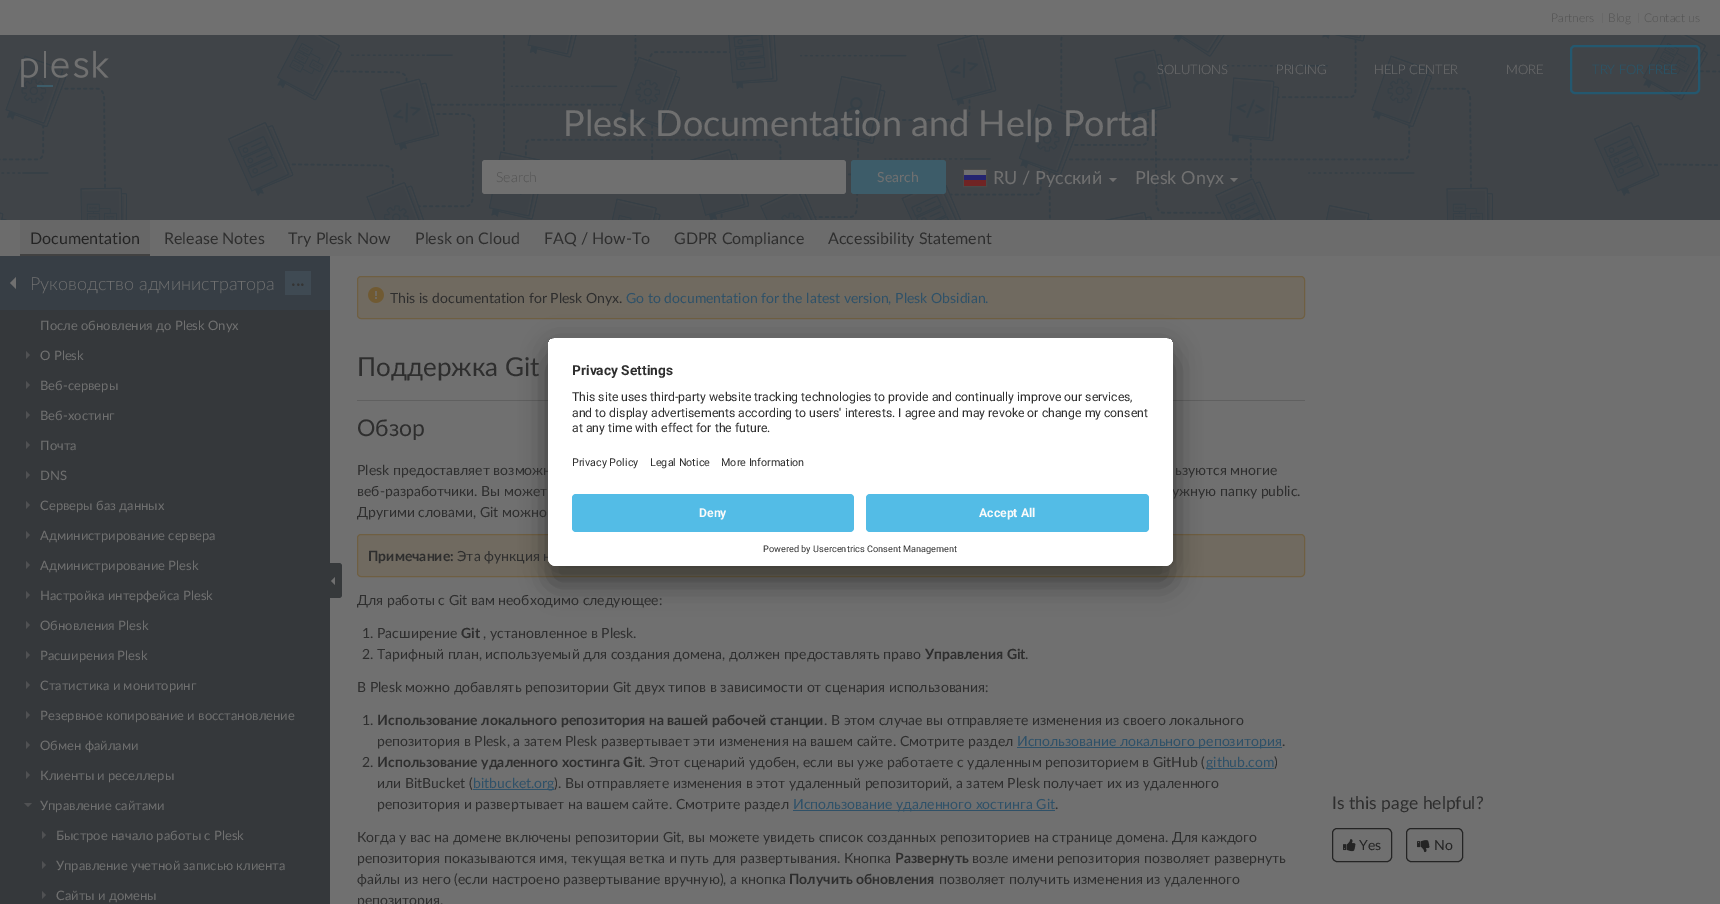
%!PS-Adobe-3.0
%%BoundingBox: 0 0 1720 904
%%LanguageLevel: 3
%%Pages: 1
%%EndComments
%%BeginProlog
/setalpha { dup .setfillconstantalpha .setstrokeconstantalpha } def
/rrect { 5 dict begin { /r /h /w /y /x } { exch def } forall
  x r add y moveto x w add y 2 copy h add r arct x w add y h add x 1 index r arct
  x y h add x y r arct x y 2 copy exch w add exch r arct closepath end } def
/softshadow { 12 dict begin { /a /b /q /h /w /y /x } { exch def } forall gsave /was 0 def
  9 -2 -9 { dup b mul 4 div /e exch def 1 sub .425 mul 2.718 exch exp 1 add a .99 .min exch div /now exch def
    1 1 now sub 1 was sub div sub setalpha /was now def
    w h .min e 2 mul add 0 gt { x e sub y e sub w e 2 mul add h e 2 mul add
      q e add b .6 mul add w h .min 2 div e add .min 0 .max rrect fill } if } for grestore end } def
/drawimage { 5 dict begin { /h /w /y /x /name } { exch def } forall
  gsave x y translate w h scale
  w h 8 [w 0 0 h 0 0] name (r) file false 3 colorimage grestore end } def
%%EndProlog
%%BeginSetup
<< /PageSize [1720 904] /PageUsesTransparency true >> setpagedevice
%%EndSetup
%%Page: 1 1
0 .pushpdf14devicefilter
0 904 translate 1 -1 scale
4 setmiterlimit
0.439 setgray
0 0 1720 904 rectfill
(images/1.raw) 0 35 1720 185 drawimage
0.412 setgray
1602 13 1 10 rectfill
1638 13 1 10 rectfill
(images/2.raw) 21 50 88 38 drawimage
0.141 0.345 0.435 setrgbcolor
2 setlinewidth
1571 46 128 47 4 rrect stroke
0.439 setgray
482 160 364 34 3 rrect fill
0.239 0.361 0.412 setrgbcolor
851 160 95 34 3 rrect fill
0.286 setgray
1 setlinewidth
963.5 169.5 23 17 rectstroke
(images/3.raw) 964 170 22 16 drawimage
0.439 setgray
newpath 1109 178 moveto 1117 178 lineto 1113 182 lineto closepath fill
newpath 1230 178 moveto 1238 178 lineto 1234 182 lineto closepath fill
0.424 setgray
0 220 1720 36 rectfill
0.404 setgray
20 220 130 34 rectfill
0.259 setgray
20 254 130 2 rectfill
0.208 0.22 0.231 setrgbcolor
0 310 330 594 rectfill
0.216 0.243 0.271 setrgbcolor
0 256 330 54 rectfill
0.439 setgray
newpath 16 277 moveto 16 289 lineto 10 283 lineto closepath fill
0.247 0.29 0.325 setrgbcolor
285 271 26 24 rectfill
0.314 0.318 0.325 setrgbcolor
newpath 26 359 moveto 26 351 lineto 30 355 lineto closepath fill
newpath 26 389 moveto 26 381 lineto 30 385 lineto closepath fill
newpath 26 419 moveto 26 411 lineto 30 415 lineto closepath fill
newpath 26 449 moveto 26 441 lineto 30 445 lineto closepath fill
newpath 26 479 moveto 26 471 lineto 30 475 lineto closepath fill
newpath 26 509 moveto 26 501 lineto 30 505 lineto closepath fill
newpath 26 539 moveto 26 531 lineto 30 535 lineto closepath fill
newpath 26 569 moveto 26 561 lineto 30 565 lineto closepath fill
newpath 26 599 moveto 26 591 lineto 30 595 lineto closepath fill
newpath 26 629 moveto 26 621 lineto 30 625 lineto closepath fill
newpath 26 659 moveto 26 651 lineto 30 655 lineto closepath fill
newpath 26 689 moveto 26 681 lineto 30 685 lineto closepath fill
newpath 26 719 moveto 26 711 lineto 30 715 lineto closepath fill
newpath 26 749 moveto 26 741 lineto 30 745 lineto closepath fill
newpath 26 779 moveto 26 771 lineto 30 775 lineto closepath fill
newpath 24 803 moveto 32 803 lineto 28 807 lineto closepath fill
newpath 42 839 moveto 42 831 lineto 46 835 lineto closepath fill
newpath 42 869 moveto 42 861 lineto 46 865 lineto closepath fill
newpath 42 899 moveto 42 891 lineto 46 895 lineto closepath fill
0.212 0.224 0.231 setrgbcolor
newpath 330 563 moveto 339 563 lineto 340.5 563 342 564.5 342 566 curveto 342 595 lineto 342 596.5 340.5 598 339 598 curveto 330 598 lineto closepath fill
0.439 setgray
newpath 335 577 moveto 335 585 lineto 331 581 lineto closepath fill
0.439 0.416 0.376 setrgbcolor
357.5 276.5 947 42 3.5 rrect gsave fill grestore
0.435 0.373 0.259 setrgbcolor
stroke
(images/4.raw) 368 287 16 16 drawimage
0.376 setgray
357 400 948 1 rectfill
0.439 0.416 0.376 setrgbcolor
357.5 534.5 947 42 3.5 rrect gsave fill grestore
0.435 0.373 0.259 setrgbcolor
stroke
0.184 0.318 0.408 setrgbcolor
1017 747 265 1 rectfill
1206 768 68 1 rectfill
473 789 81 1 rectfill
793 810 262 1 rectfill
0.141 setgray
1332.5 828.5 59 33 4.5 rrect stroke
(images/5.raw) 1343 839 13 13 drawimage
1406.5 828.5 56 33 4.5 rrect stroke
(images/6.raw) 1417 840 13 13 drawimage
0 setgray
548 358 625 228 8 14 0.3 softshadow
548 343 625 228 8 13 0.22 softshadow
/Lato-Light [12 0 0 -12 0 0] selectfont
0.322 setgray
1551 22 moveto (Partners) show
1608 22 moveto (Blog) show
1644 22 moveto (Contact us) show
/Lato-Light [13 0 0 -13 0 0] selectfont
0.439 setgray
1157 74 moveto (SOLUTIONS) show
1276 74 moveto (PRICING) show
1374 74 moveto (HELP CENTER) show
1506 74 moveto (MORE) show
0.141 0.345 0.435 setrgbcolor
1592 74 moveto (TRY FOR FREE) show
/Lato-Regular [36 0 0 -36 0 0] selectfont
0.439 setgray
563 136 moveto (Plesk Documentation and Help Portal) show
/Lato-Light [14 0 0 -14 0 0] selectfont
0.322 setgray
496 182 moveto (Search) show
/Lato-Regular [14 0 0 -14 0 0] selectfont
0.439 setgray
877 182 moveto (Search) show
/Lato-Regular [18 0 0 -18 0 0] selectfont
993 184 moveto (RU / Русский) show
1135 184 moveto (Plesk Onyx) show
/Lato-Regular [16 0 0 -16 0 0] selectfont
0.141 setgray
30 244 moveto (Documentation) show
0.18 setgray
164 244 moveto (Release Notes) show
288 244 moveto (Try Plesk Now) show
415 244 moveto (Plesk on Cloud) show
544 244 moveto (FAQ / How-To) show
674 244 moveto (GDPR Compliance) show
828 244 moveto (Accessibility Statement) show
/Lato-Light [18 0 0 -18 0 0] selectfont
0.439 setgray
30 290 moveto (Руководство администратора) show
/Lato-Regular [18 0 0 -18 0 0] selectfont
0.204 setgray
291 290 moveto (···) show
/Lato-Regular [13 0 0 -13 0 0] selectfont
0.439 setgray
40 330 moveto (После обновления до Plesk Onyx) show
40 360 moveto (О Plesk) show
40 390 moveto (Веб-серверы) show
40 420 moveto (Веб-хостинг) show
40 450 moveto (Почта) show
40 480 moveto (DNS) show
40 510 moveto (Серверы баз данных) show
40 540 moveto (Администрирование сервера) show
40 570 moveto (Администрирование Plesk) show
40 600 moveto (Настройка интерфейса Plesk) show
40 630 moveto (Обновления Plesk) show
40 660 moveto (Расширения Plesk) show
40 690 moveto (Статистика и мониторинг) show
40 720 moveto (Резервное копирование и восстановление) show
40 750 moveto (Обмен файлами) show
40 780 moveto (Клиенты и реселлеры) show
40 810 moveto (Управление сайтами) show
56 840 moveto (Быстрое начало работы с Plesk) show
56 870 moveto (Управление учетной записью клиента) show
56 900 moveto (Сайты и домены) show
/Lato-Regular [14 0 0 -14 0 0] selectfont
0.18 setgray
390 303 moveto (This is documentation for Plesk Onyx.) show
0.184 0.318 0.408 setrgbcolor
626 303 moveto (Go to documentation for the latest version, Plesk Obsidian.) show
/Lato-Regular [26 0 0 -26 0 0] selectfont
0.18 setgray
357 376 moveto (Поддержка Git) show
/Lato-Regular [23 0 0 -23 0 0] selectfont
357 436 moveto (Обзор) show
/Lato-Regular [14 0 0 -14 0 0] selectfont
357 475 moveto (Plesk предоставляет возможн) show
1175 475 moveto (ьзуются многие) show
357 496 moveto (веб-разработчики. Вы может) show
1172 496 moveto (ужную папку public.) show
357 517 moveto (Другими словами, Git можно) show
/Lato-Bold [14 0 0 -14 0 0] selectfont
368 561 moveto (Примечание:) show
/Lato-Regular [14 0 0 -14 0 0] selectfont
457 561 moveto (Эта функция н) show
357 605 moveto (Для работы с Git вам необходимо следующее:) show
362 638 moveto (1. Расширение) show
/Lato-Bold [14 0 0 -14 0 0] selectfont
461 638 moveto (Git) show
/Lato-Regular [14 0 0 -14 0 0] selectfont
483 638 moveto (, установленное в Plesk.) show
362 659 moveto (2. Тарифный план, используемый для создания домена, должен предоставлять право) show
/Lato-Bold [14 0 0 -14 0 0] selectfont
925 659 moveto (Управления Git) show
/Lato-Regular [14 0 0 -14 0 0] selectfont
1025 659 moveto (.) show
357 692 moveto (В Plesk можно добавлять репозитории Git двух типов в зависимости от сценария использования:) show
362 725 moveto (1.) show
/Lato-Bold [14 0 0 -14 0 0] selectfont
377 725 moveto (Использование локального репозитория на вашей рабочей станции) show
/Lato-Regular [14 0 0 -14 0 0] selectfont
824 725 moveto (. В этом случае вы отправляете изменения из своего локального) show
377 746 moveto (репозитория в Plesk, а затем Plesk развертывает эти изменения на вашем сайте. Смотрите раздел) show
0.184 0.318 0.408 setrgbcolor
1017 746 moveto (Использование локального репозитория) show
0.18 setgray
1282 746 moveto (.) show
362 767 moveto (2.) show
/Lato-Bold [14 0 0 -14 0 0] selectfont
377 767 moveto (Использование удаленного хостинга Git) show
/Lato-Regular [14 0 0 -14 0 0] selectfont
642 767 moveto (. Этот сценарий удобен, если вы уже работаете с удаленным репозиторием в GitHub \() show
0.184 0.318 0.408 setrgbcolor
1206 767 moveto (github.com) show
0.18 setgray
1274 767 moveto (\)) show
377 788 moveto (или BitBucket \() show
0.184 0.318 0.408 setrgbcolor
473 788 moveto (bitbucket.org) show
0.18 setgray
554 788 moveto (\). Вы отправляете изменения в этот удаленный репозиторий, а затем Plesk получает их из удаленного) show
377 809 moveto (репозитория и развертывает на вашем сайте. Смотрите раздел) show
0.184 0.318 0.408 setrgbcolor
793 809 moveto (Использование удаленного хостинга Git) show
0.18 setgray
1055 809 moveto (.) show
357 842 moveto (Когда у вас на домене включены репозитории Git, вы можете увидеть список созданных репозиториев на странице домена. Для каждого) show
357 863 moveto (репозитория показываются имя, текущая ветка и путь для развертывания. Кнопка) show
/Lato-Bold [14 0 0 -14 0 0] selectfont
895 863 moveto (Развернуть) show
/Lato-Regular [14 0 0 -14 0 0] selectfont
972 863 moveto (возле имени репозитория позволяет развернуть) show
357 884 moveto (файлы из него \(если настроено развертывание вручную\), а кнопка) show
/Lato-Bold [14 0 0 -14 0 0] selectfont
789 884 moveto (Получить обновления) show
/Lato-Regular [14 0 0 -14 0 0] selectfont
939 884 moveto (позволяет получить изменения из удаленного) show
357 905 moveto (репозитория.) show
/Lato-Regular [17.5 0 0 -17.5 0 0] selectfont
1332 809 moveto (Is this page helpful?) show
/Lato-Regular [14 0 0 -14 0 0] selectfont
0.141 setgray
1359 850 moveto (Yes) show
1434 850 moveto (No) show
1 setgray
548 338 625 228 8 rrect fill
gsave
548 338 625 228 8 rrect clip newpath
newpath 556 338 moveto 1165 338 lineto 1169.5 338 1173 341.5 1173 346 curveto 1173 486 lineto 548 486 lineto 548 346 lineto 548 341.5 551.5 338 556 338 curveto closepath clip newpath
548 339 625 147 rectfill
grestore
/Roboto-Bold [13.75 0 0 -13.75 0 0] selectfont
0.18 setgray
572 375 moveto (Privacy Settings) show
/Roboto-Regular [12.25 0 0 -12.25 0 0] selectfont
572 401 moveto (This site uses third-party website tracking technologies to provide and continually improve our services,) show
572 417 moveto (and to display advertisements according to users' interests. I agree and may revoke or change my consent) show
572 432 moveto (at any time with effect for the future.) show
/Roboto-Regular [10.75 0 0 -10.75 0 0] selectfont
572 466 moveto (Privacy Policy) show
650 466 moveto (Legal Notice) show
721 466 moveto (More Information) show
1 setgray
newpath 548 486 moveto 1173 486 lineto 1173 558 lineto 1173 562.5 1169.5 566 1165 566 curveto 556 566 lineto 551.5 566 548 562.5 548 558 curveto closepath fill
0.325 0.737 0.902 setrgbcolor
572 494 282 38 4 rrect fill
/Roboto-Bold [12.25 0 0 -12.25 0 0] selectfont
0.98 setgray
699 517 moveto (Deny) show
0.325 0.737 0.902 setrgbcolor
866 494 283 38 4 rrect fill
0.98 setgray
979 517 moveto (Accept All) show
/Roboto-Regular [9.2 0 0 -9.2 0 0] selectfont
0.18 setgray
763 552 moveto (Powered by Usercentrics Consent Management) show
.poppdf14devicefilter showpage
%%EOF
